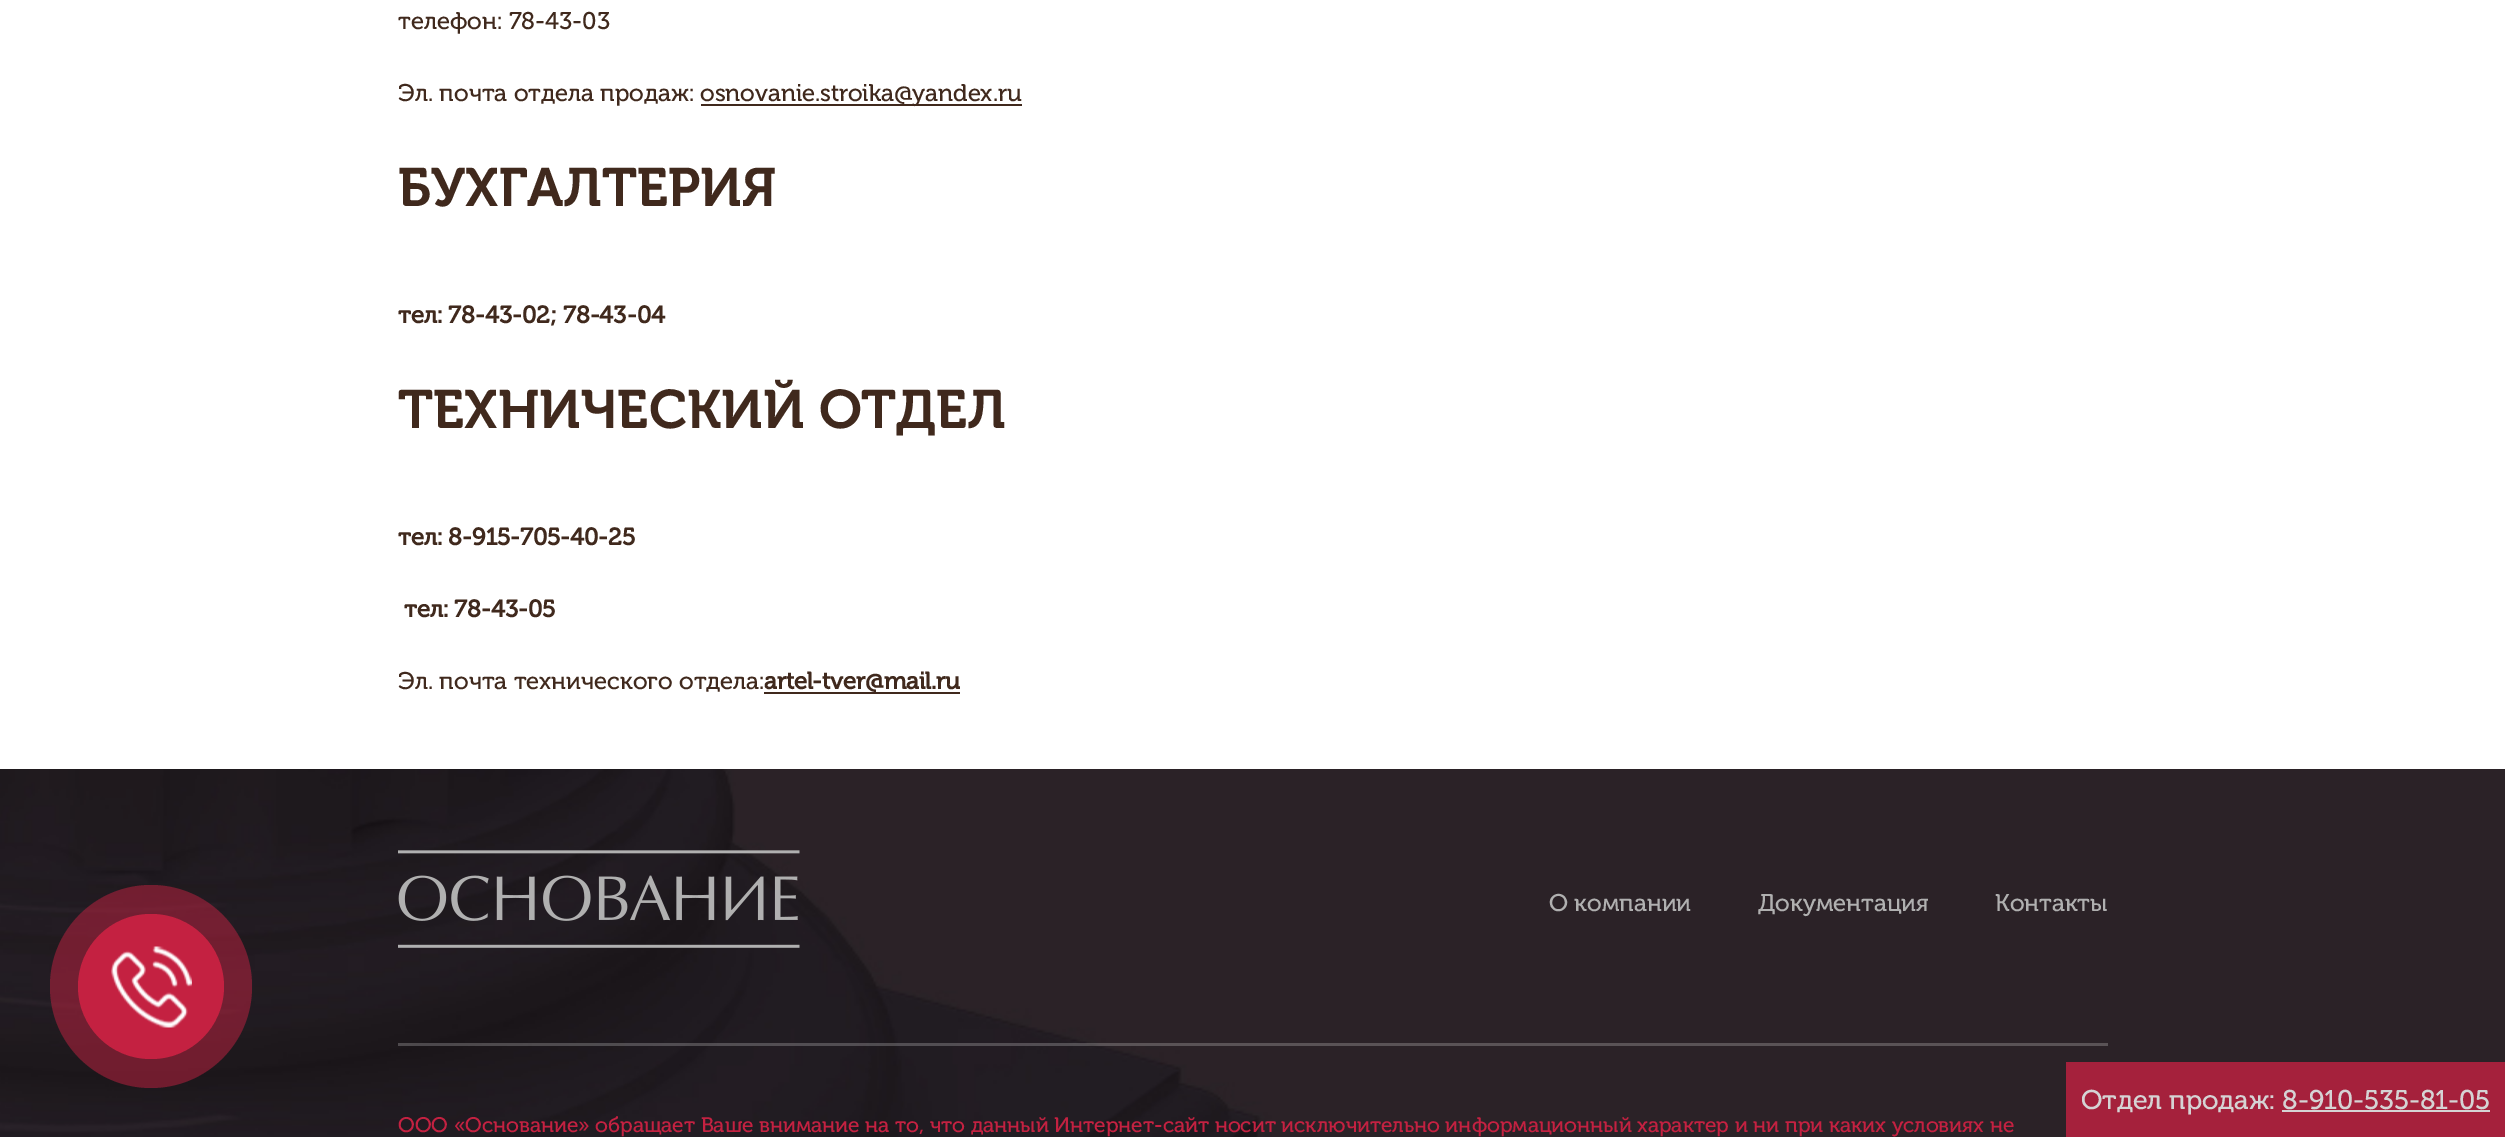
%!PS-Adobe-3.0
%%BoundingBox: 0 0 2505 1137
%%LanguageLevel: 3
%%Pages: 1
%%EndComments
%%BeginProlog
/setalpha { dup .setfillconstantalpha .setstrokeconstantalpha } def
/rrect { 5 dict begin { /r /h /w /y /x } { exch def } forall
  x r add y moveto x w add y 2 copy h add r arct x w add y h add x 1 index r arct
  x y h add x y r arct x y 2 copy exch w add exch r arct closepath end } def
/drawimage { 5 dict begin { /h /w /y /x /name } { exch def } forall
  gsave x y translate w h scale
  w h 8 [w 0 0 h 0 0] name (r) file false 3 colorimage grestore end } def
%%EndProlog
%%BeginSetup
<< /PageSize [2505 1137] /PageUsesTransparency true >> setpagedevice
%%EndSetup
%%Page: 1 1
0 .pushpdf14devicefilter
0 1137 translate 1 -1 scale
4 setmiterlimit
1 setgray
0 0 2505 1137 rectfill
0.251 0.161 0.114 setrgbcolor
701 104 321 2 rectfill
764 692 196 2 rectfill
(images/2.raw) 0 769 2505 368 drawimage
0.5 setalpha
0.769 0.129 0.255 setrgbcolor
50 885 202 203 101 rrect fill
1 setalpha
78 914 146 145 72.5 rrect fill
(images/1.raw) 111 946 81 82 drawimage
(images/3.raw) 398 850 402 98 drawimage
0.22 setalpha
1 setgray
398 1043 1710 3 rectfill
1 setalpha
0.647 0.129 0.235 setrgbcolor
2066 1062 439 75 rectfill
0.835 0.827 0.831 setrgbcolor
2282 1110 208 2 rectfill
/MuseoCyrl-Regular [24 0 0 -24 0 0] selectfont
0.251 0.161 0.114 setrgbcolor
398 29 moveto (телефон: 78-43-03) show
398 101 moveto (Эл. почта отдела продаж:) show
700 101 moveto (osnovanie.stroika@yandex.ru) show
/MuseoCyrl-SemiBold [54 0 0 -54 0 0] selectfont
398 206 moveto (БУХГАЛТЕРИЯ) show
/MuseoCyrl-Bold [24 0 0 -24 0 0] selectfont
398 323 moveto (тел: 78-43-02; 78-43-04) show
/MuseoCyrl-SemiBold [54 0 0 -54 0 0] selectfont
398 428 moveto (ТЕХНИЧЕСКИЙ ОТДЕЛ) show
/MuseoCyrl-Bold [24 0 0 -24 0 0] selectfont
398 545 moveto (тел: 8-915-705-40-25) show
404 617 moveto (тел: 78-43-05) show
/MuseoCyrl-Regular [24 0 0 -24 0 0] selectfont
398 689 moveto (Эл. почта технического отдела:) show
/MuseoCyrl-Bold [24 0 0 -24 0 0] selectfont
764 689 moveto (artel-tver@mail.ru) show
/MuseoCyrl-Regular [24 0 0 -24 0 0] selectfont
0.69 setgray
1549 911 moveto (О компании) show
1758 911 moveto (Документация) show
1995 911 moveto (Контакты) show
/MuseoCyrl-Regular [21 0 0 -21 0 0] selectfont
0.769 0.129 0.255 setrgbcolor
398 1132 moveto (ООО «Основание» обращает Ваше внимание на то, что данный Интернет-сайт носит исключительно информационный характер и ни при каких условиях не) show
/MuseoCyrl-Regular [27 0 0 -27 0 0] selectfont
0.835 0.827 0.831 setrgbcolor
2081 1109 moveto (Отдел продаж: 8-910-535-81-05) show
.poppdf14devicefilter showpage
%%EOF
